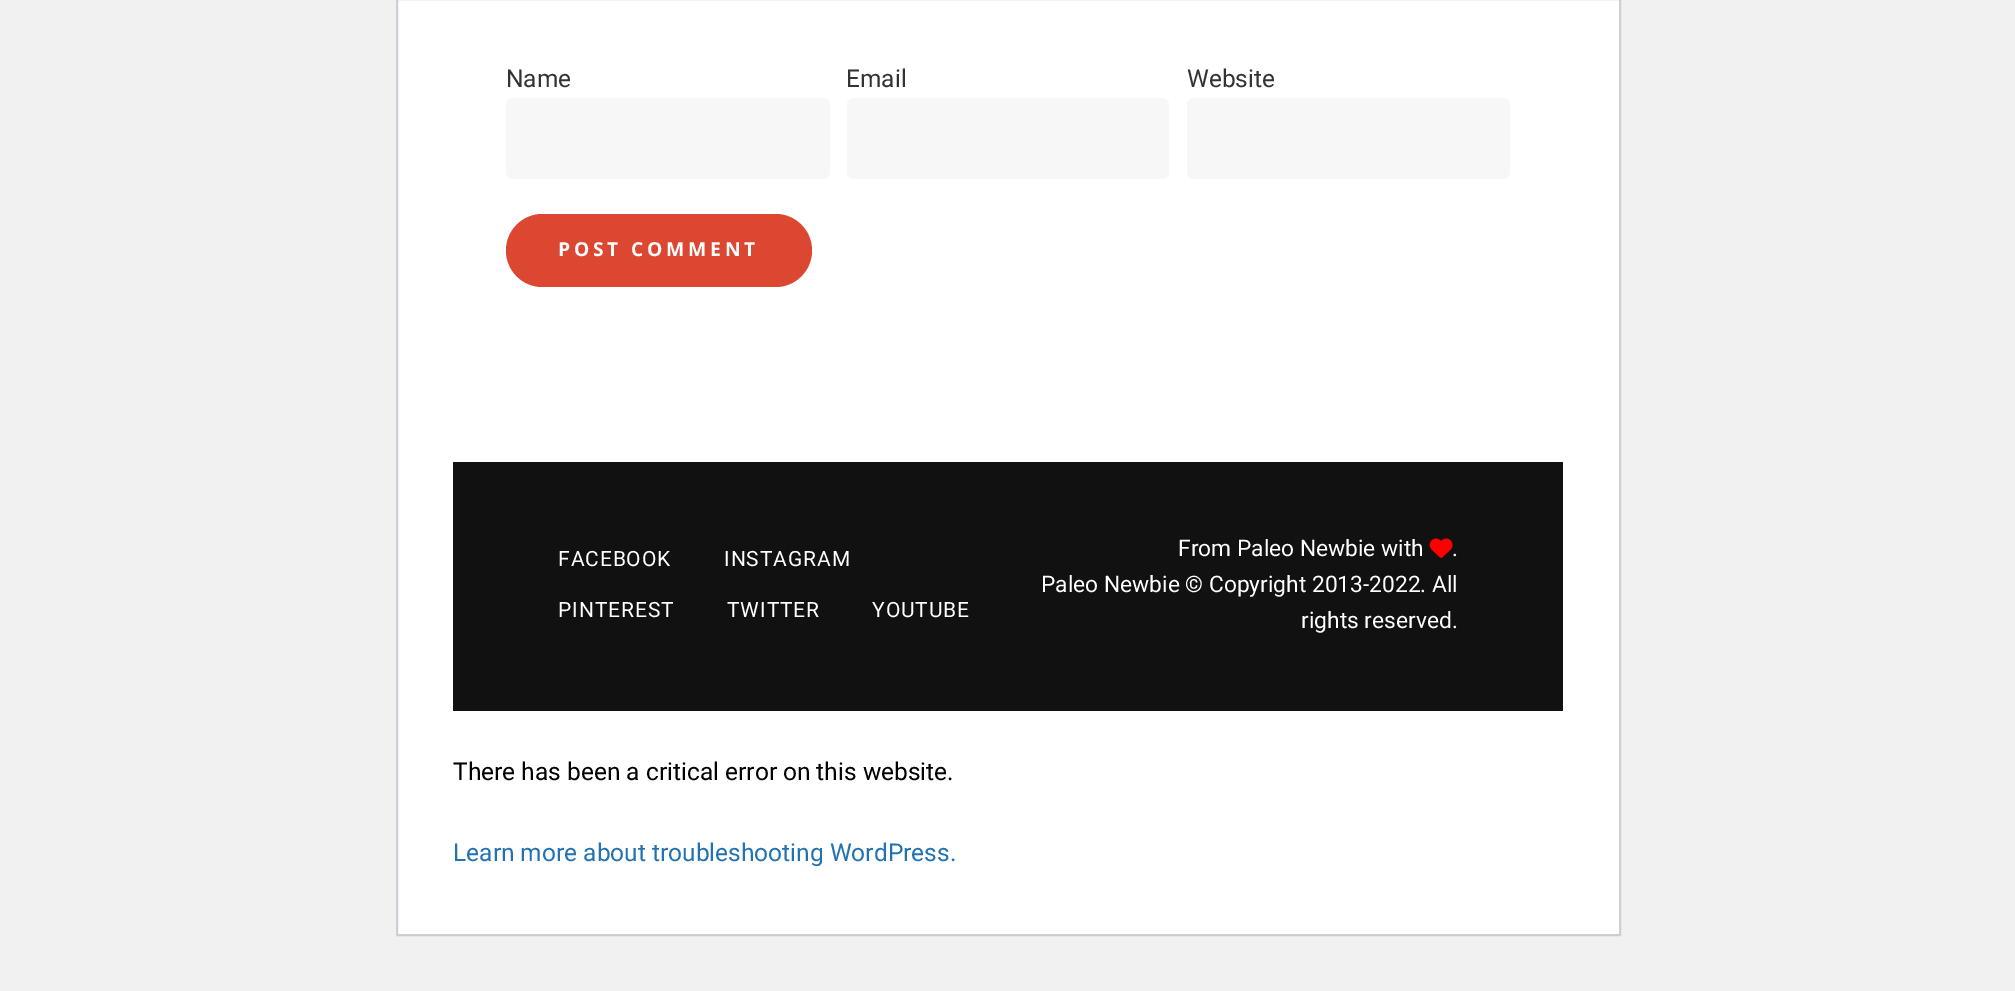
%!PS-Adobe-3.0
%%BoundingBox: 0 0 2015 991
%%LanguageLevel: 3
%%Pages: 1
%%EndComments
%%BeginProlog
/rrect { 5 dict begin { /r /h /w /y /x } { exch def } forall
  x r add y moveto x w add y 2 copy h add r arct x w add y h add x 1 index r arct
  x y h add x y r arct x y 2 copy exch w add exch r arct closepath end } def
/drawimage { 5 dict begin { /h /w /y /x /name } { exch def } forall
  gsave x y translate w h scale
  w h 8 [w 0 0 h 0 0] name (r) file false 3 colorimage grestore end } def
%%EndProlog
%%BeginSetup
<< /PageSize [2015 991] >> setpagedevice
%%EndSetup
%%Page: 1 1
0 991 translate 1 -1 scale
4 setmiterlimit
0.945 setgray
0 0 2015 991 rectfill
1 setgray
newpath 397 -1 moveto 1620 -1 lineto 1620 935 lineto 397 935 lineto closepath gsave fill grestore
0.8 0.816 0.831 setrgbcolor
2 setlinewidth
stroke
0.969 setgray
506 98 324 81 7 rrect fill
847 98 322 81 7 rrect fill
1187 98 323 81 7 rrect fill
0.863 0.278 0.192 setrgbcolor
506 214 306 73 36.5 rrect fill
0.067 setgray
453 462 1110 249 rectfill
(images/1.raw) 1429 538 24 20 drawimage
/Roboto-Regular [24.5 0 0 -24.5 0 0] selectfont
0.2 setgray
506 87 moveto (Name) show
846 87 moveto (Email) show
1187 87 moveto (Website) show
/OpenSans-Bold [19.25 0 0 -19.25 0 0] selectfont
1 setgray
558 256 moveto 3.8 0 (POST COMMENT) ashow
/Roboto-Regular [21 0 0 -21 0 0] selectfont
558 566 moveto 0.9 0 (FACEBOOK) ashow
724 566 moveto 0.9 0 (INSTAGRAM) ashow
558 617 moveto 0.9 0 (PINTEREST) ashow
727 617 moveto 0.9 0 (TWITTER) ashow
872 617 moveto 0.9 0 (YOUTUBE) ashow
/Roboto-Regular [22.75 0 0 -22.75 0 0] selectfont
1178 556 moveto (From Paleo Newbie with) show
1452 556 moveto (.) show
1041 592 moveto (Paleo Newbie © Copyright 2013-2022. All) show
1301 628 moveto (rights reserved.) show
/Roboto-Regular [24.5 0 0 -24.5 0 0] selectfont
0 setgray
453 780 moveto (There has been a critical error on this website.) show
0.133 0.443 0.694 setrgbcolor
453 861 moveto (Learn more about troubleshooting WordPress.) show
showpage
%%EOF
